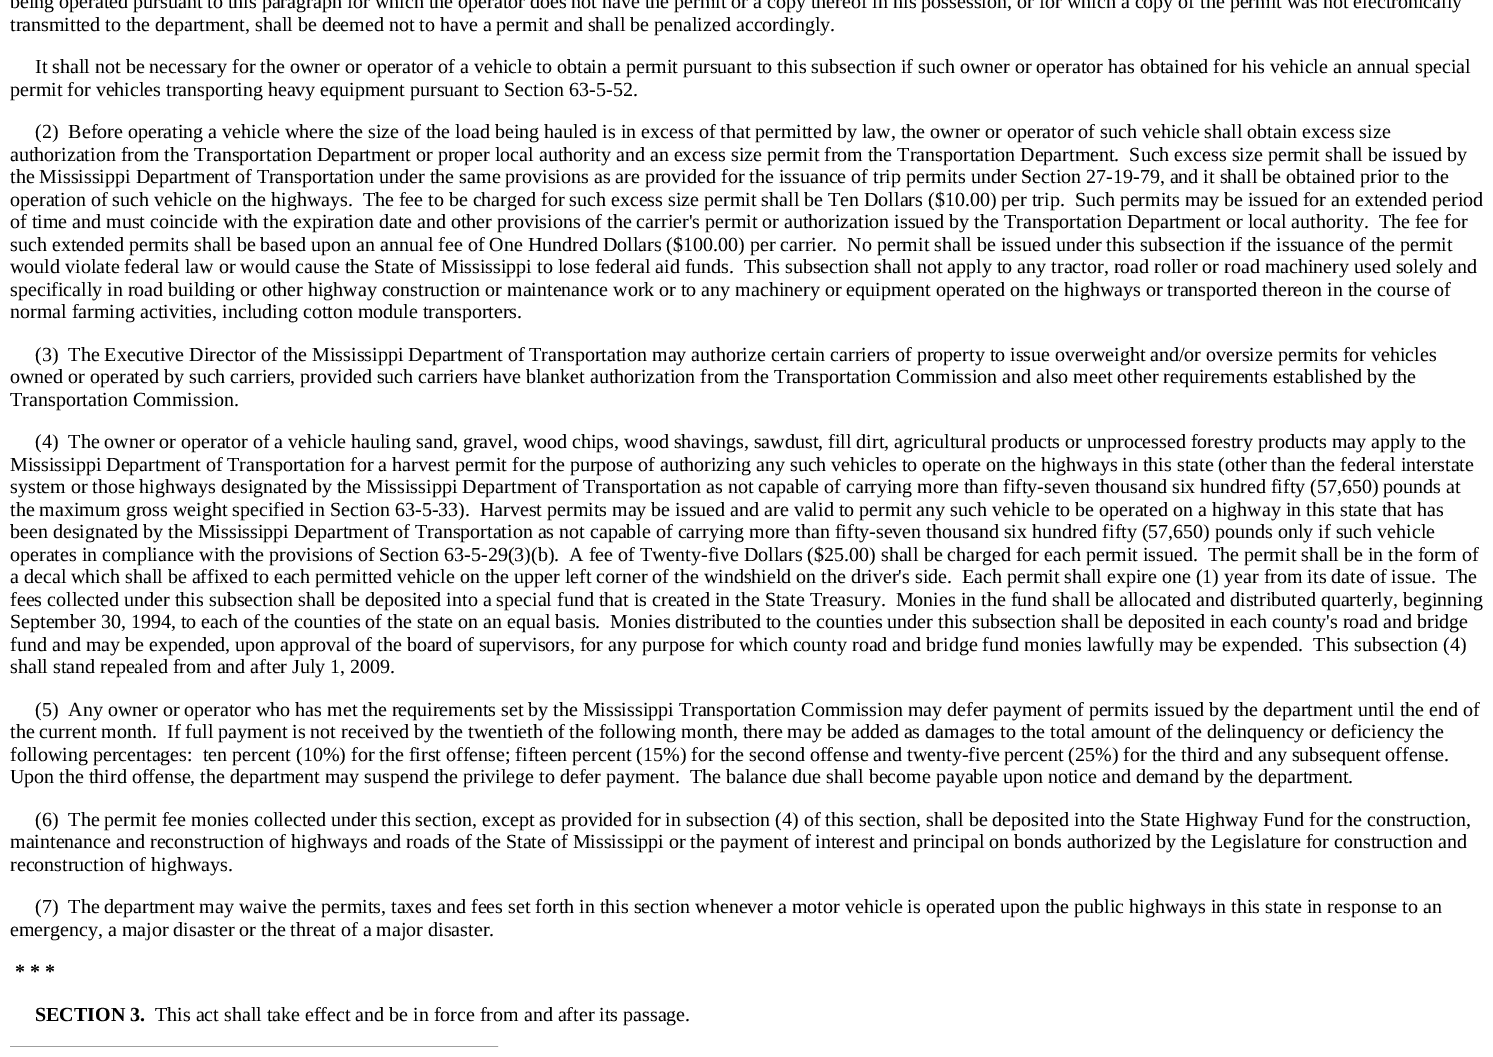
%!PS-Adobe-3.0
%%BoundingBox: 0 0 1493 1057
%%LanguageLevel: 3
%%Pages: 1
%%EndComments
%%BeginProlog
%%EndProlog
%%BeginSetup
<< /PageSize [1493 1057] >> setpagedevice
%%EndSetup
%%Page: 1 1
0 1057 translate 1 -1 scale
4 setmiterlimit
1 setgray
0 0 1493 1057 rectfill
0.624 setgray
10 1046 489 1 rectfill
0.933 setgray
498 1046 1 1 rectfill
/LiberationSerif-Regular [20 0 0 -20 0 0] selectfont
0 setgray
10 8 moveto (being operated pursuant to this paragraph for which the operator does not have the permit or a copy thereof in his possession, or for which a copy of the permit was not electronically) show
10 31 moveto (transmitted to the department, shall be deemed not to have a permit and shall be penalized accordingly.) show
35 73 moveto (It shall not be necessary for the owner or operator of a vehicle to obtain a permit pursuant to this subsection if such owner or operator has obtained for his vehicle an annual special) show
10 96 moveto (permit for vehicles transporting heavy equipment pursuant to Section 63-5-52.) show
35 138 moveto (\(2\)  Before operating a vehicle where the size of the load being hauled is in excess of that permitted by law, the owner or operator of such vehicle shall obtain excess size) show
10 161 moveto (authorization from the Transportation Department or proper local authority and an excess size permit from the Transportation Department.  Such excess size permit shall be issued by) show
10 183 moveto (the Mississippi Department of Transportation under the same provisions as are provided for the issuance of trip permits under Section 27-19-79, and it shall be obtained prior to the) show
10 206 moveto (operation of such vehicle on the highways.  The fee to be charged for such excess size permit shall be Ten Dollars \($10.00\) per trip.  Such permits may be issued for an extended period) show
10 228 moveto (of time and must coincide with the expiration date and other provisions of the carrier's permit or authorization issued by the Transportation Department or local authority.  The fee for) show
10 251 moveto (such extended permits shall be based upon an annual fee of One Hundred Dollars \($100.00\) per carrier.  No permit shall be issued under this subsection if the issuance of the permit) show
10 273 moveto (would violate federal law or would cause the State of Mississippi to lose federal aid funds.  This subsection shall not apply to any tractor, road roller or road machinery used solely and) show
10 296 moveto (specifically in road building or other highway construction or maintenance work or to any machinery or equipment operated on the highways or transported thereon in the course of) show
10 318 moveto (normal farming activities, including cotton module transporters.) show
35 361 moveto (\(3\)  The Executive Director of the Mississippi Department of Transportation may authorize certain carriers of property to issue overweight and/or oversize permits for vehicles) show
10 383 moveto (owned or operated by such carriers, provided such carriers have blanket authorization from the Transportation Commission and also meet other requirements established by the) show
10 406 moveto (Transportation Commission.) show
35 448 moveto (\(4\)  The owner or operator of a vehicle hauling sand, gravel, wood chips, wood shavings, sawdust, fill dirt, agricultural products or unprocessed forestry products may apply to the) show
10 471 moveto (Mississippi Department of Transportation for a harvest permit for the purpose of authorizing any such vehicles to operate on the highways in this state \(other than the federal interstate) show
10 493 moveto (system or those highways designated by the Mississippi Department of Transportation as not capable of carrying more than fifty-seven thousand six hundred fifty \(57,650\) pounds at) show
10 516 moveto (the maximum gross weight specified in Section 63-5-33\).  Harvest permits may be issued and are valid to permit any such vehicle to be operated on a highway in this state that has) show
10 538 moveto (been designated by the Mississippi Department of Transportation as not capable of carrying more than fifty-seven thousand six hundred fifty \(57,650\) pounds only if such vehicle) show
10 561 moveto (operates in compliance with the provisions of Section 63-5-29\(3\)\(b\).  A fee of Twenty-five Dollars \($25.00\) shall be charged for each permit issued.  The permit shall be in the form of) show
10 583 moveto (a decal which shall be affixed to each permitted vehicle on the upper left corner of the windshield on the driver's side.  Each permit shall expire one \(1\) year from its date of issue.  The) show
10 606 moveto (fees collected under this subsection shall be deposited into a special fund that is created in the State Treasury.  Monies in the fund shall be allocated and distributed quarterly, beginning) show
10 628 moveto (September 30, 1994, to each of the counties of the state on an equal basis.  Monies distributed to the counties under this subsection shall be deposited in each county's road and bridge) show
10 651 moveto (fund and may be expended, upon approval of the board of supervisors, for any purpose for which county road and bridge fund monies lawfully may be expended.  This subsection \(4\)) show
10 673 moveto (shall stand repealed from and after July 1, 2009.) show
35 716 moveto (\(5\)  Any owner or operator who has met the requirements set by the Mississippi Transportation Commission may defer payment of permits issued by the department until the end of) show
10 738 moveto (the current month.  If full payment is not received by the twentieth of the following month, there may be added as damages to the total amount of the delinquency or deficiency the) show
10 761 moveto (following percentages:  ten percent \(10%\) for the first offense; fifteen percent \(15%\) for the second offense and twenty-five percent \(25%\) for the third and any subsequent offense.) show
10 783 moveto (Upon the third offense, the department may suspend the privilege to defer payment.  The balance due shall become payable upon notice and demand by the department.) show
35 826 moveto (\(6\)  The permit fee monies collected under this section, except as provided for in subsection \(4\) of this section, shall be deposited into the State Highway Fund for the construction,) show
10 848 moveto (maintenance and reconstruction of highways and roads of the State of Mississippi or the payment of interest and principal on bonds authorized by the Legislature for construction and) show
10 871 moveto (reconstruction of highways.) show
35 913 moveto (\(7\)  The department may waive the permits, taxes and fees set forth in this section whenever a motor vehicle is operated upon the public highways in this state in response to an) show
10 936 moveto (emergency, a major disaster or the threat of a major disaster.) show
/LiberationSerif-Bold [20 0 0 -20 0 0] selectfont
15 978 moveto (* * *) show
35 1021 moveto (SECTION 3.) show
/LiberationSerif-Regular [20 0 0 -20 0 0] selectfont
155 1021 moveto (This act shall take effect and be in force from and after its passage.) show
showpage
%%EOF
